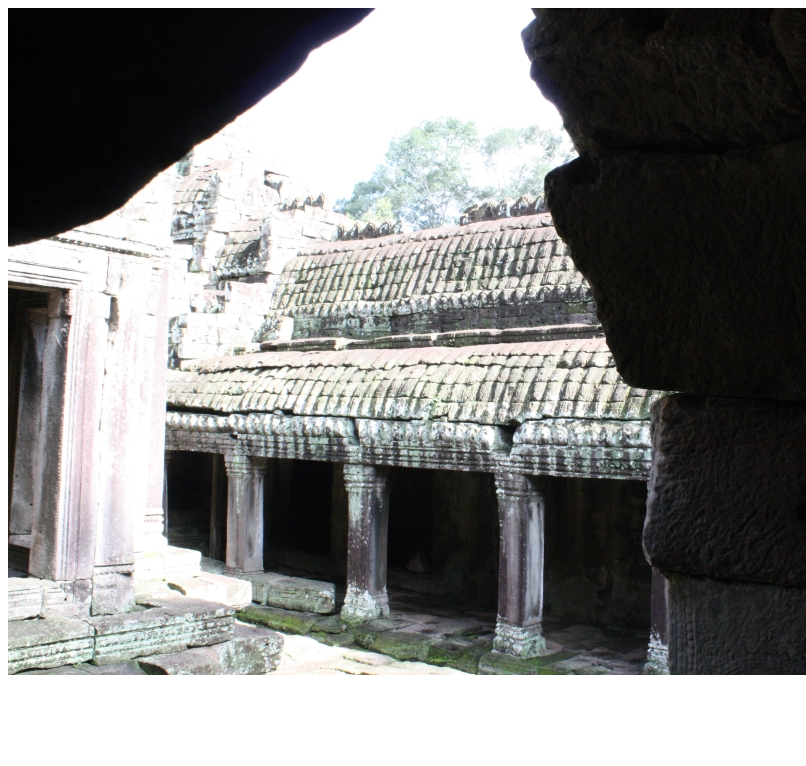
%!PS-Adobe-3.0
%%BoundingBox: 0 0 806 766
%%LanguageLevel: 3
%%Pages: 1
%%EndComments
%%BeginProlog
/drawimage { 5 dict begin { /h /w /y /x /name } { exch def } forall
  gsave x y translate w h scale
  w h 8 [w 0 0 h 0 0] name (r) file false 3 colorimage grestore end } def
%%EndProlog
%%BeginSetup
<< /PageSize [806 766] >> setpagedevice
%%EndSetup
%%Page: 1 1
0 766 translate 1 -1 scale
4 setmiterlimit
1 setgray
0 0 806 766 rectfill
(images/1.raw) 8 8 798 667 drawimage
showpage
%%EOF
